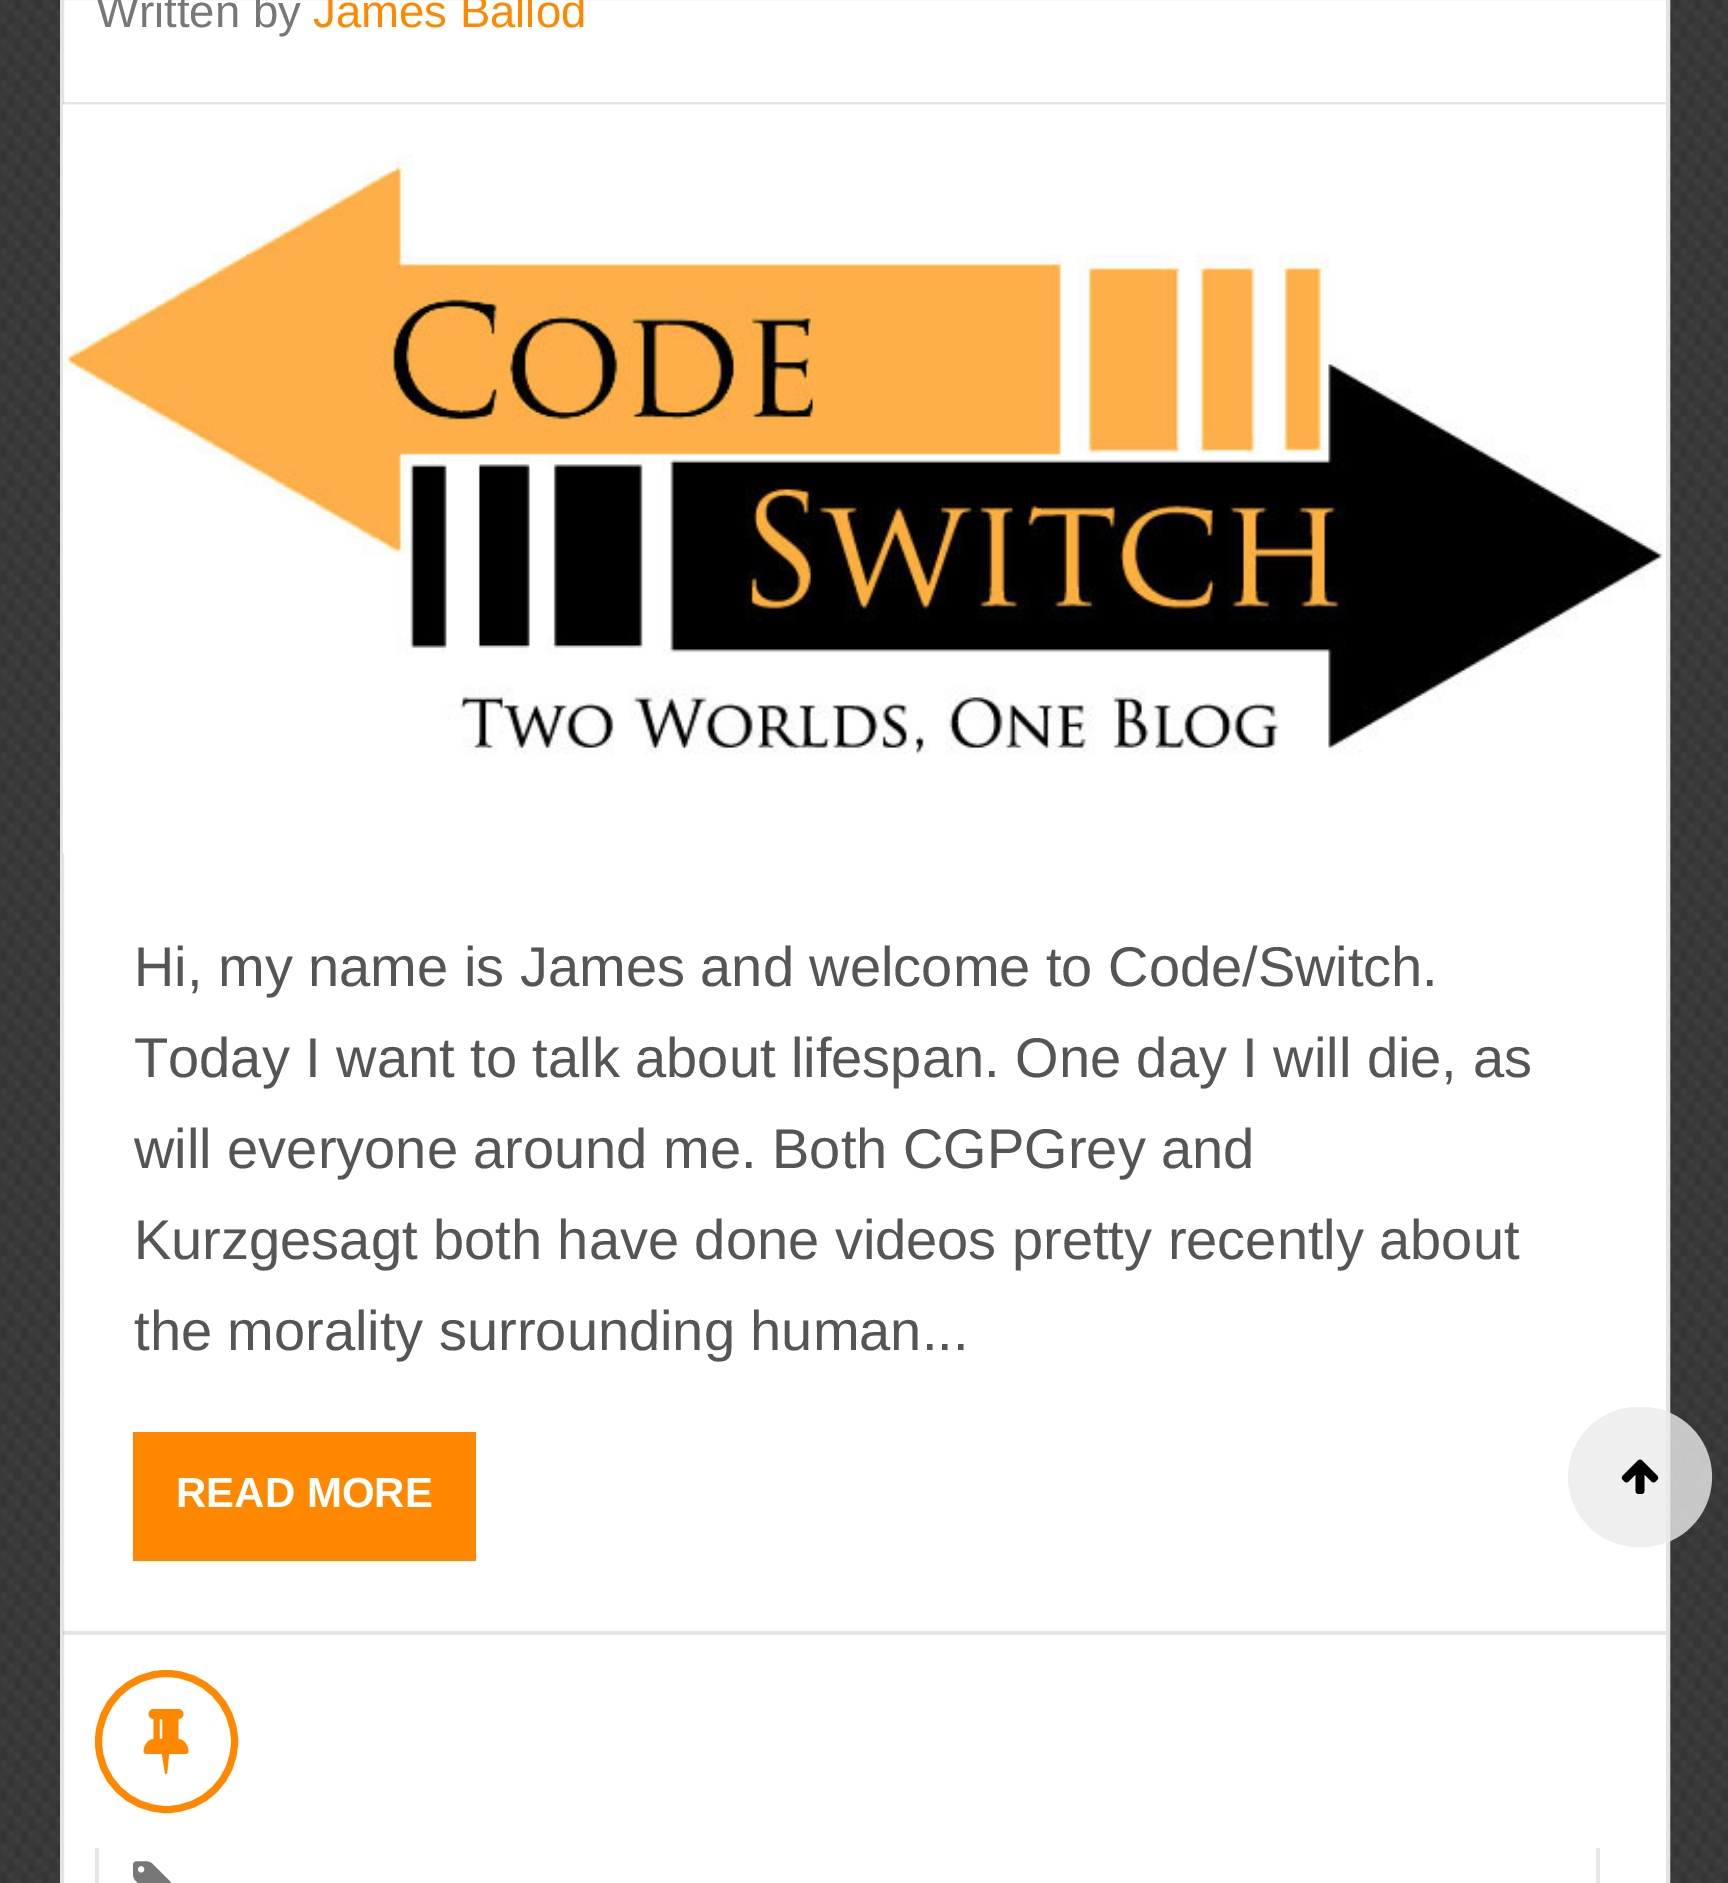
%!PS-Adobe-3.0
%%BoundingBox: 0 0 1728 1883
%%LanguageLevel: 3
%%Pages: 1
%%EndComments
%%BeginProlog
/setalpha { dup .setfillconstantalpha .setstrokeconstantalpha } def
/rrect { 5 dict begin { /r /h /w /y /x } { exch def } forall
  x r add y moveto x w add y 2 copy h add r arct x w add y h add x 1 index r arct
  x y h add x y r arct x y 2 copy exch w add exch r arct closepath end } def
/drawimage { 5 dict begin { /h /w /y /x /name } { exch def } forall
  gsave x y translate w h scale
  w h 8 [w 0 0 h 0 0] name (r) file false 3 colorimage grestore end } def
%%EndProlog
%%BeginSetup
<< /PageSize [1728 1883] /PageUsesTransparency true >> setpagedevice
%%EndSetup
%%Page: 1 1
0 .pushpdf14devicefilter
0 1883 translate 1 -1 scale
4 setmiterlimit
1 setgray
0 0 1728 1883 rectfill
(images/1.raw) 0 0 1728 1883 drawimage
newpath 62 -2 moveto 1668 -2 lineto 1668 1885 lineto 62 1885 lineto closepath gsave fill grestore
0.89 setgray
4 setlinewidth
stroke
0.1 setalpha
0 setgray
63 102 1603 3 rectfill
1 setalpha
(images/2.raw) 63 104 1603 750 drawimage
1 0.533 0 setrgbcolor
133 1432 343 129 rectfill
0.1 setalpha
0 setgray
63 1631 1603 4 rectfill
1 setalpha
1 0.533 0 setrgbcolor
7 setlinewidth
newpath 166.5 1741.5 68 0 360 arc closepath stroke
(images/3.raw) 143 1709 46 65 drawimage
0.902 setgray
1596 1848 4 35 rectfill
95 1848 4 35 rectfill
(images/4.raw) 133 1861 39 22 drawimage
0.8 setalpha
0.922 setgray
1568 1407 144 140 70 rrect fill
1 setalpha
(images/5.raw) 1621 1459 38 35 drawimage
/LiberationSans-Regular [45.5 0 0 -45.5 0 0] selectfont
0.467 setgray
96 27 moveto (Written by) show
1 0.533 0 setrgbcolor
313 27 moveto (James Ballod) show
/LiberationSans-Regular [56 0 0 -56 0 0] selectfont
0.333 setgray
134 986 moveto (Hi, my name is James and welcome to Code/Switch.) show
134 1077 moveto (Today I want to talk about lifespan. One day I will die, as) show
134 1168 moveto (will everyone around me. Both CGPGrey and) show
134 1259 moveto (Kurzgesagt both have done videos pretty recently about) show
134 1350 moveto (the morality surrounding human...) show
/LiberationSans-Bold [42 0 0 -42 0 0] selectfont
1 setgray
176 1507 moveto (READ MORE) show
.poppdf14devicefilter showpage
%%EOF
